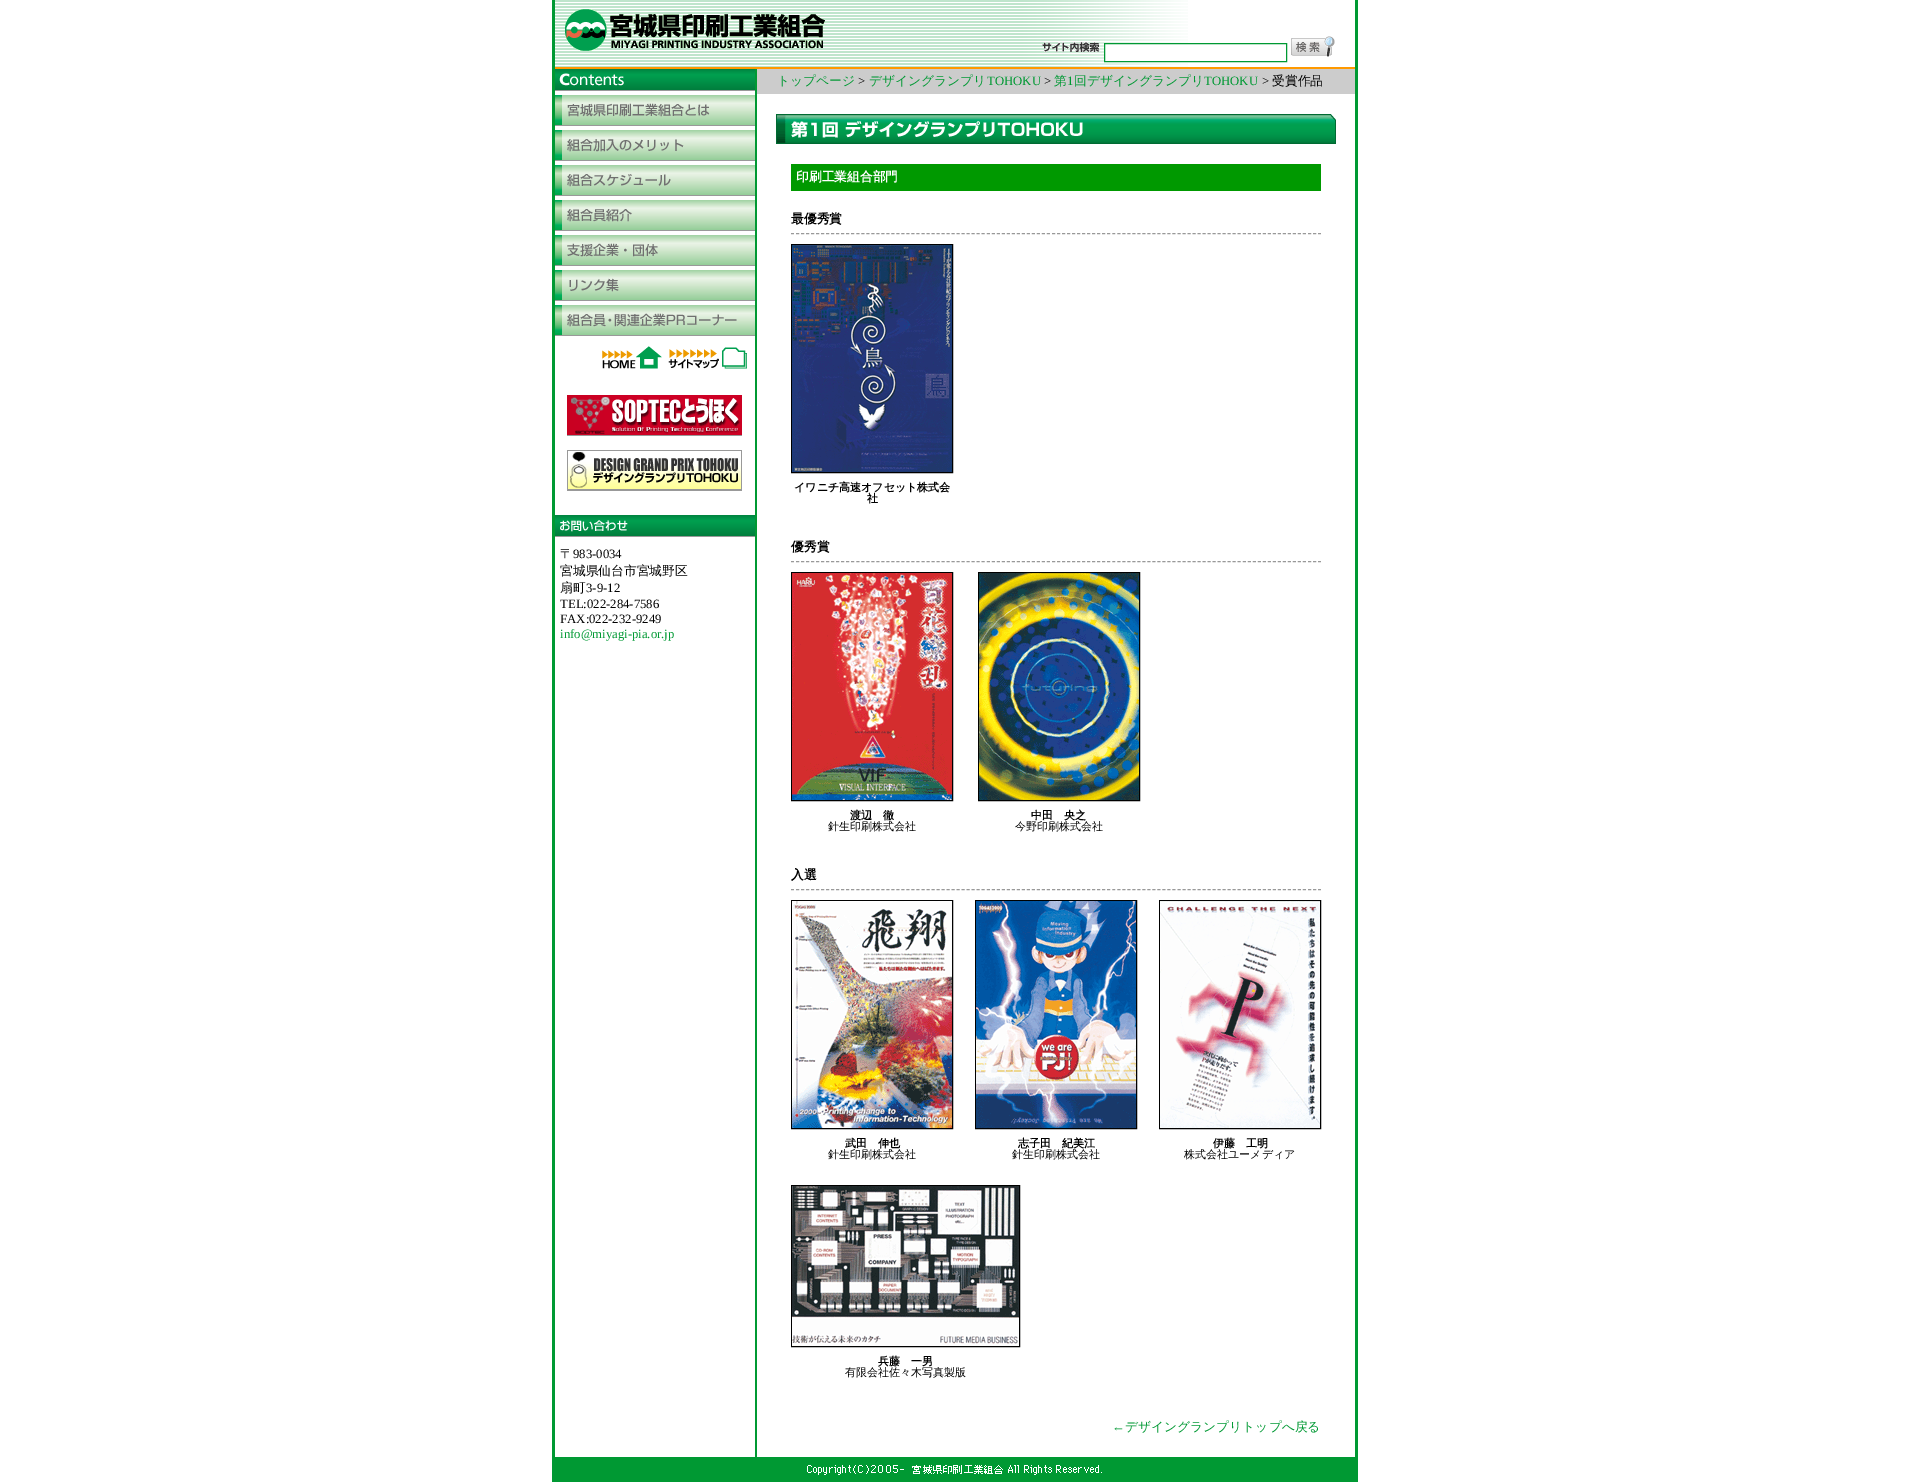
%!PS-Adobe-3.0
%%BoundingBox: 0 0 1910 1482
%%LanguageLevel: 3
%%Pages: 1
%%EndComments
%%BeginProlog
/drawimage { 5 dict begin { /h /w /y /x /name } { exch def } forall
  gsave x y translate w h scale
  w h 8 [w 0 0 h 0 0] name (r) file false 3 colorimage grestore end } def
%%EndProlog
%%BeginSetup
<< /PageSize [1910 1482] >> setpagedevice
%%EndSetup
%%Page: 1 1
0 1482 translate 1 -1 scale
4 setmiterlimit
1 setgray
0 0 1910 1482 rectfill
0 0.6 0.2 setrgbcolor
1355 0 3 1482 rectfill
552 0 3 1482 rectfill
(images/1.raw) 555 0 633 67 drawimage
1 0.6 0 setrgbcolor
555 67 800 2 rectfill
(images/2.raw) 565 9 260 42 drawimage
(images/3.raw) 1042 42 58 10 drawimage
1 setgray
1105 45 83 16 rectfill
0 0.6 0.2 setrgbcolor
1104.5 43.5 182 18 rectstroke
(images/4.raw) 1291 36 44 21 drawimage
755 69 2 1388 rectfill
(images/5.raw) 555 69 200 21 drawimage
0.6 setgray
555 90 200 1 rectfill
(images/6.raw) 555 95 200 30 drawimage
555 125 200 1 rectfill
(images/7.raw) 555 130 200 30 drawimage
555 160 200 1 rectfill
(images/8.raw) 555 165 200 30 drawimage
555 195 200 1 rectfill
(images/9.raw) 555 200 200 30 drawimage
555 230 200 1 rectfill
(images/10.raw) 555 235 200 30 drawimage
555 265 200 1 rectfill
(images/11.raw) 555 270 200 30 drawimage
555 300 200 1 rectfill
(images/12.raw) 555 305 200 30 drawimage
555 335 200 1 rectfill
(images/13.raw) 602 346 60 23 drawimage
(images/14.raw) 668 347 79 22 drawimage
(images/15.raw) 567 395 175 40 drawimage
567 435 175 1 rectfill
(images/16.raw) 567 450 175 40 drawimage
567 490 175 1 rectfill
(images/17.raw) 555 515 200 21 drawimage
555 536 200 1 rectfill
0.8 setgray
757 69 598 25 rectfill
(images/18.raw) 776 114 560 30 drawimage
0 0.6 0 setrgbcolor
791 164 530 27 rectfill
0.6 setgray
[3 2.02] 0 setdash
newpath 791 233.5 moveto 1321 233.5 lineto stroke
0 setgray
[] 0 setdash
791.5 244.5 161 228 rectstroke
(images/19.raw) 792 245 160 227 drawimage
0.6 setgray
[3 2.02] 0 setdash
newpath 791 561.5 moveto 1321 561.5 lineto stroke
0 setgray
[] 0 setdash
791.5 572.5 161 228 rectstroke
(images/20.raw) 792 573 160 227 drawimage
978.5 572.5 161 228 rectstroke
(images/21.raw) 979 573 160 227 drawimage
0.6 setgray
[3 2.02] 0 setdash
newpath 791 889.5 moveto 1321 889.5 lineto stroke
0 setgray
[] 0 setdash
791.5 900.5 161 228 rectstroke
(images/22.raw) 792 901 160 227 drawimage
975.5 900.5 161 228 rectstroke
(images/23.raw) 976 901 160 227 drawimage
1159.5 900.5 161 228 rectstroke
(images/24.raw) 1160 901 160 227 drawimage
791.5 1185.5 228 161 rectstroke
(images/25.raw) 792 1186 227 160 drawimage
0 0.6 0.2 setrgbcolor
555 1457 800 25 rectfill
(images/26.raw) 807 1465 295 10 drawimage
/WenQuanYiZenHei-Medium [12.75 0 0 -12.75 0 0] selectfont
0 setgray
560 558 moveto (〒) show
/LiberationSerif-Regular [12.75 0 0 -12.75 0 0] selectfont
573 558 moveto (983-0034) show
/WenQuanYiZenHei-Medium [12.75 0 0 -12.75 0 0] selectfont
560 575 moveto (宮城県仙台市宮城野区) show
560 592 moveto (扇町) show
/LiberationSerif-Regular [12.75 0 0 -12.75 0 0] selectfont
586 592 moveto (3-9-12) show
560 608 moveto (TEL:022-284-7586) show
560 623 moveto (FAX:022-232-9249) show
0 0.6 0.2 setrgbcolor
560 638 moveto (info@miyagi-pia.or.jp) show
/WenQuanYiZenHei-Medium [12.75 0 0 -12.75 0 0] selectfont
777 85 moveto (トップページ) show
/LiberationSerif-Regular [12.75 0 0 -12.75 0 0] selectfont
0 setgray
858 85 moveto (>) show
/WenQuanYiZenHei-Medium [12.75 0 0 -12.75 0 0] selectfont
0 0.6 0.2 setrgbcolor
869 85 moveto (デザイングランプリ) show
/LiberationSerif-Regular [12.75 0 0 -12.75 0 0] selectfont
987 85 moveto (TOHOKU) show
0 setgray
1044 85 moveto (>) show
/WenQuanYiZenHei-Medium [12.75 0 0 -12.75 0 0] selectfont
0 0.6 0.2 setrgbcolor
1054 85 moveto (第) show
/LiberationSerif-Regular [12.75 0 0 -12.75 0 0] selectfont
1067 85 moveto (1) show
/WenQuanYiZenHei-Medium [12.75 0 0 -12.75 0 0] selectfont
1074 85 moveto (回デザイングランプリ) show
/LiberationSerif-Regular [12.75 0 0 -12.75 0 0] selectfont
1204 85 moveto (TOHOKU) show
0 setgray
1262 85 moveto (>) show
/WenQuanYiZenHei-Medium [12.75 0 0 -12.75 0 0] selectfont
1272 85 moveto (受賞作品) show
/WenQuanYiZenHei-Bold [12.75 0 0 -12.75 0 0] selectfont
1 setgray
796 181 moveto (印刷工業組合部門) show
0 setgray
791 223 moveto (最優秀賞) show
/WenQuanYiZenHei-Bold [11 0 0 -11 0 0] selectfont
794 491 moveto (イワニチ高速オフセット株式会) show
867 502 moveto (社) show
/WenQuanYiZenHei-Bold [12.75 0 0 -12.75 0 0] selectfont
791 551 moveto (優秀賞) show
/WenQuanYiZenHei-Bold [11 0 0 -11 0 0] selectfont
850 819 moveto (渡辺　徹) show
/WenQuanYiZenHei-Medium [11 0 0 -11 0 0] selectfont
828 830 moveto (針生印刷株式会社) show
/WenQuanYiZenHei-Bold [11 0 0 -11 0 0] selectfont
1031 819 moveto (中田　央之) show
/WenQuanYiZenHei-Medium [11 0 0 -11 0 0] selectfont
1015 830 moveto (今野印刷株式会社) show
/WenQuanYiZenHei-Bold [12.75 0 0 -12.75 0 0] selectfont
791 879 moveto (入選) show
/WenQuanYiZenHei-Bold [11 0 0 -11 0 0] selectfont
845 1147 moveto (武田　伸也) show
/WenQuanYiZenHei-Medium [11 0 0 -11 0 0] selectfont
828 1158 moveto (針生印刷株式会社) show
/WenQuanYiZenHei-Bold [11 0 0 -11 0 0] selectfont
1018 1147 moveto (志子田　紀美江) show
/WenQuanYiZenHei-Medium [11 0 0 -11 0 0] selectfont
1012 1158 moveto (針生印刷株式会社) show
/WenQuanYiZenHei-Bold [11 0 0 -11 0 0] selectfont
1213 1147 moveto (伊藤　工明) show
/WenQuanYiZenHei-Medium [11 0 0 -11 0 0] selectfont
1184 1158 moveto (株式会社ユーメディア) show
/WenQuanYiZenHei-Bold [11 0 0 -11 0 0] selectfont
878 1365 moveto (兵藤　一男) show
/WenQuanYiZenHei-Medium [11 0 0 -11 0 0] selectfont
845 1376 moveto (有限会社佐々木写真製版) show
/LiberationSerif-Regular [12.75 0 0 -12.75 0 0] selectfont
0 0.6 0.2 setrgbcolor
1112 1431 moveto (←) show
/WenQuanYiZenHei-Medium [12.75 0 0 -12.75 0 0] selectfont
1125 1431 moveto (デザイングランプリトップへ戻る) show
showpage
%%EOF
